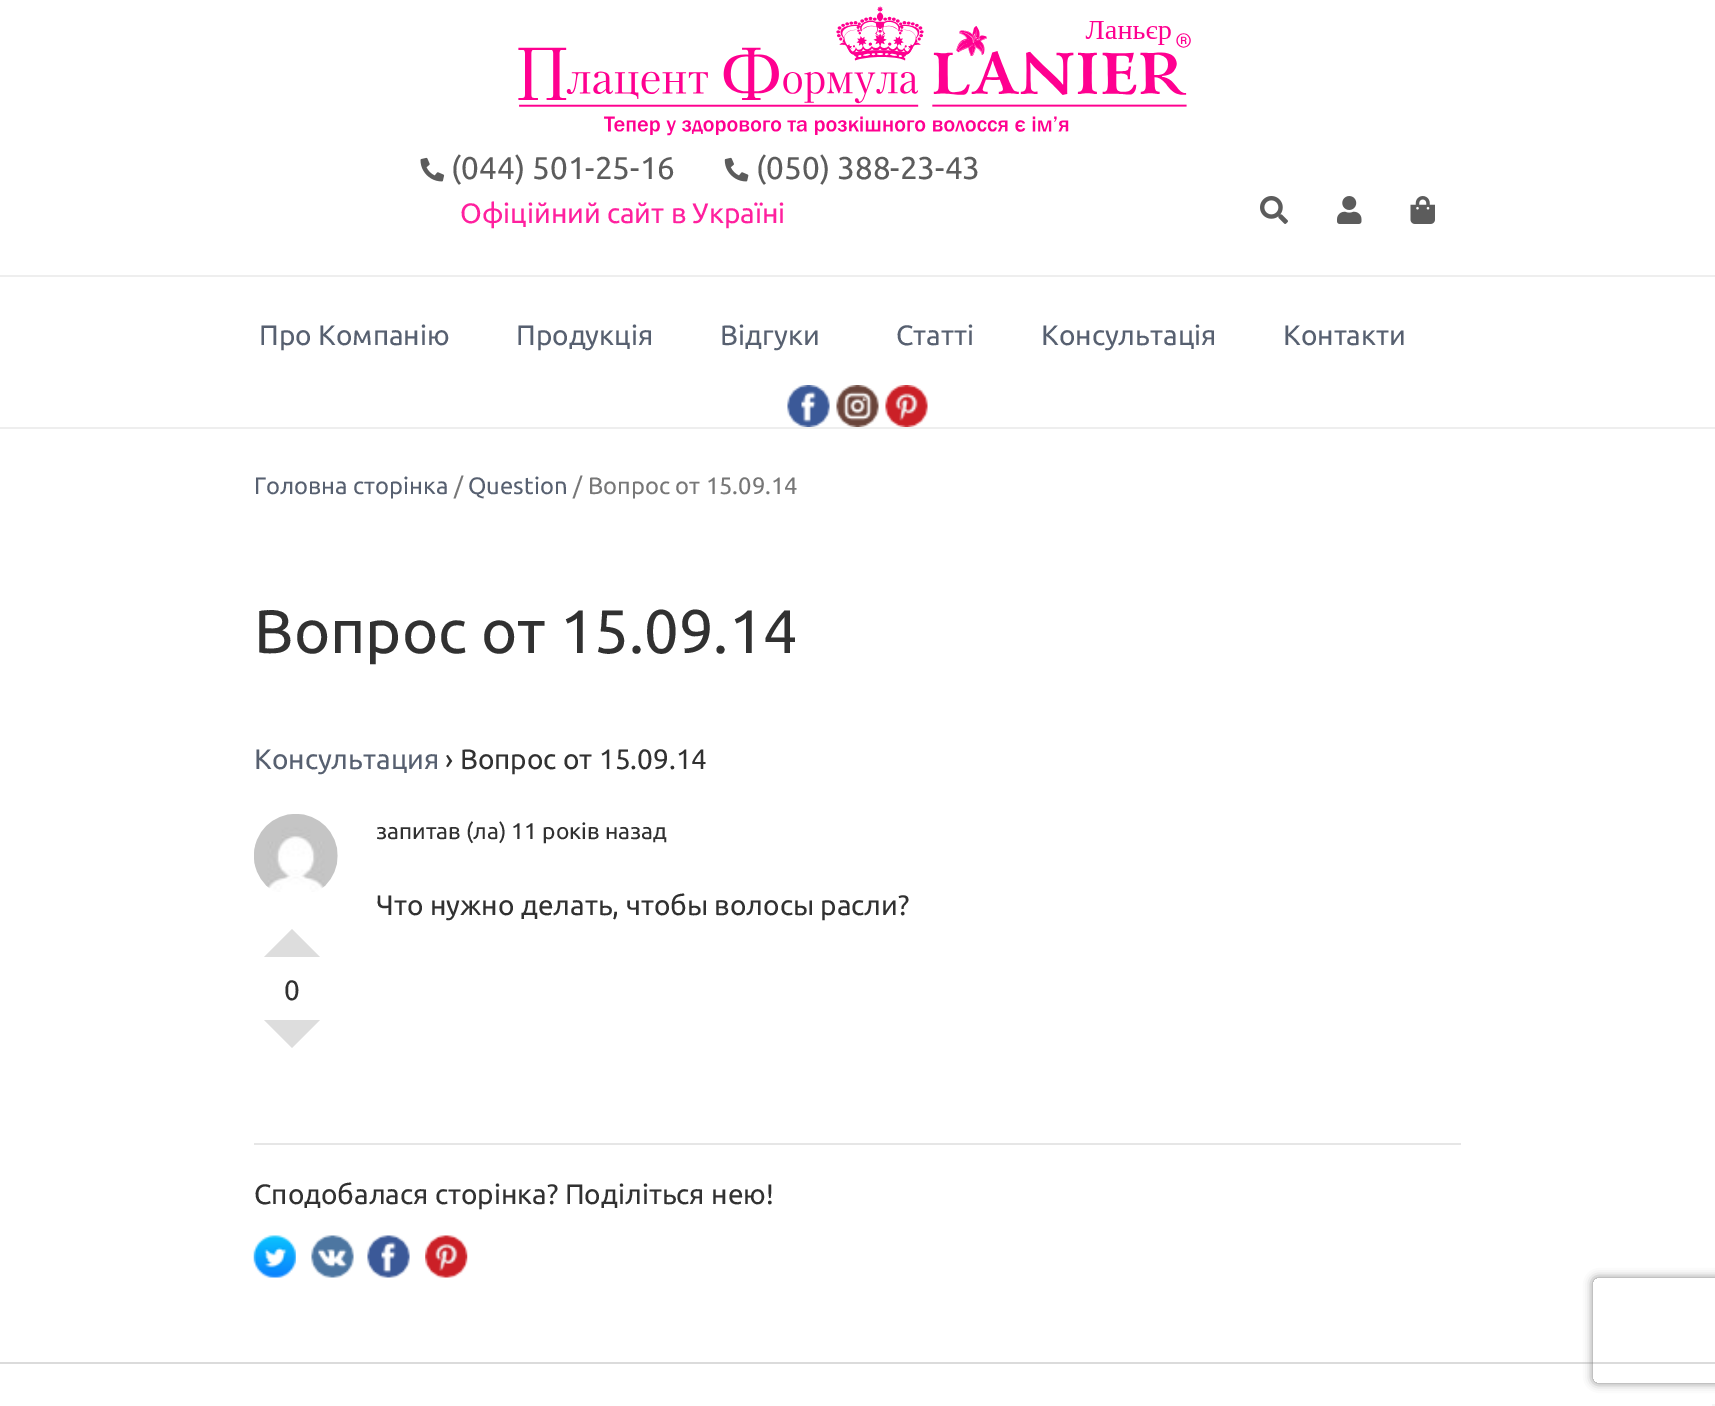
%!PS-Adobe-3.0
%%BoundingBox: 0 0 1715 1406
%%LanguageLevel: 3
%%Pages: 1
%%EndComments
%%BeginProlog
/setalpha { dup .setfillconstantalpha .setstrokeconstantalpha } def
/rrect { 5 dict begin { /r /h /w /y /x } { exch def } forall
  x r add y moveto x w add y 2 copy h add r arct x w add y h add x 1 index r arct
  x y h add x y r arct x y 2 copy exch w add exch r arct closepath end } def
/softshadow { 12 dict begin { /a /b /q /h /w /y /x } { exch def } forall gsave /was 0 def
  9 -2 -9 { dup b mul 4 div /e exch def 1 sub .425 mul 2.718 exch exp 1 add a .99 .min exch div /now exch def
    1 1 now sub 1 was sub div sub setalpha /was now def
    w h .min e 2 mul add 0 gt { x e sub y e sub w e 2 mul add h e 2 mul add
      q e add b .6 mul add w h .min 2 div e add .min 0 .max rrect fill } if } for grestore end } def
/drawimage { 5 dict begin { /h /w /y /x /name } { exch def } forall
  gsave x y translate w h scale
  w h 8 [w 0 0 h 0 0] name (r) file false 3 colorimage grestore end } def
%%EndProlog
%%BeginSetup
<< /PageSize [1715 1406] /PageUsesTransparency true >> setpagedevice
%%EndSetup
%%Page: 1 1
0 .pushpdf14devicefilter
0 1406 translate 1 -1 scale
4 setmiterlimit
1 setgray
0 0 1715 1406 rectfill
0.933 setgray
0 275 1715 2 rectfill
(images/1.raw) 518 6 673 130 drawimage
(images/2.raw) 420 157 25 25 drawimage
(images/3.raw) 724 157 25 25 drawimage
(images/4.raw) 1260 196 28 28 drawimage
(images/5.raw) 1337 196 25 28 drawimage
(images/6.raw) 1410 196 25 28 drawimage
0 427 1715 2 rectfill
(images/7.raw) 787 385 43 42 drawimage
(images/8.raw) 836 385 43 42 drawimage
(images/9.raw) 885 385 43 42 drawimage
(images/10.raw) 254 814 84 78 drawimage
0.867 setgray
newpath 320 957 moveto 264 957 lineto 292 929 lineto closepath fill
newpath 264 1020 moveto 320 1020 lineto 292 1048 lineto closepath fill
0.902 setgray
254 1143 1207 2 rectfill
(images/11.raw) 253 1235 43 43 drawimage
(images/12.raw) 311 1235 43 43 drawimage
(images/13.raw) 367 1235 43 43 drawimage
(images/14.raw) 425 1235 43 43 drawimage
0.859 setgray
0 1362 1715 2 rectfill
gsave
newpath 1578 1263 moveto 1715 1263 lineto 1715 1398 lineto 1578 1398 lineto closepath 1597 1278 moveto 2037 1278 lineto 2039 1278 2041 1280 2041 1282 curveto 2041 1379 lineto 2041 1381 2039 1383 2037 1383 curveto 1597 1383 lineto 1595 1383 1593 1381 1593 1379 curveto 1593 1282 lineto 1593 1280 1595 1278 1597 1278 curveto closepath eoclip newpath
0.502 setgray
1593 1278 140 105 4 4.5 1 softshadow
grestore
0.961 setgray
1712 1404 3 2 rectfill
/Ubuntu-Regular [31.5 0 0 -31.5 0 0] selectfont
0.361 setgray
451 179 moveto (\(044\) 501-25-16) show
756 179 moveto (\(050\) 388-23-43) show
/Ubuntu-Regular [28 0 0 -28 0 0] selectfont
1 0.125 0.62 setrgbcolor
460 223 moveto (Офіційний сайт в Україні) show
0.341 0.376 0.439 setrgbcolor
259 345 moveto (Про Компанію) show
516 345 moveto (Продукція) show
720 345 moveto (Відгуки) show
896 345 moveto (Статті) show
1041 345 moveto (Консультація) show
1283 345 moveto (Контакти) show
/Ubuntu-Regular [23.75 0 0 -23.75 0 0] selectfont
254 494 moveto (Головна сторінка) show
0.467 setgray
454 494 moveto (/) show
0.341 0.376 0.439 setrgbcolor
468 494 moveto (Question) show
0.467 setgray
573 494 moveto (/ Вопрос от 15.09.14) show
/Ubuntu-Regular [61.5 0 0 -61.5 0 0] selectfont
0.192 setgray
254 653 moveto (Вопрос от 15.09.14) show
/Ubuntu-Regular [28 0 0 -28 0 0] selectfont
0.341 0.376 0.439 setrgbcolor
254 769 moveto (Консультация) show
0.192 setgray
445 769 moveto (› Вопрос от 15.09.14) show
/Ubuntu-Regular [22.75 0 0 -22.75 0 0] selectfont
376 839 moveto (запитав \(ла\) 11 років назад) show
/Ubuntu-Regular [28 0 0 -28 0 0] selectfont
376 915 moveto (Что нужно делать, чтобы волосы расли?) show
284 1000 moveto (0) show
254 1204 moveto (Сподобалася сторінка? Поділіться нею!) show
.poppdf14devicefilter showpage
%%EOF
